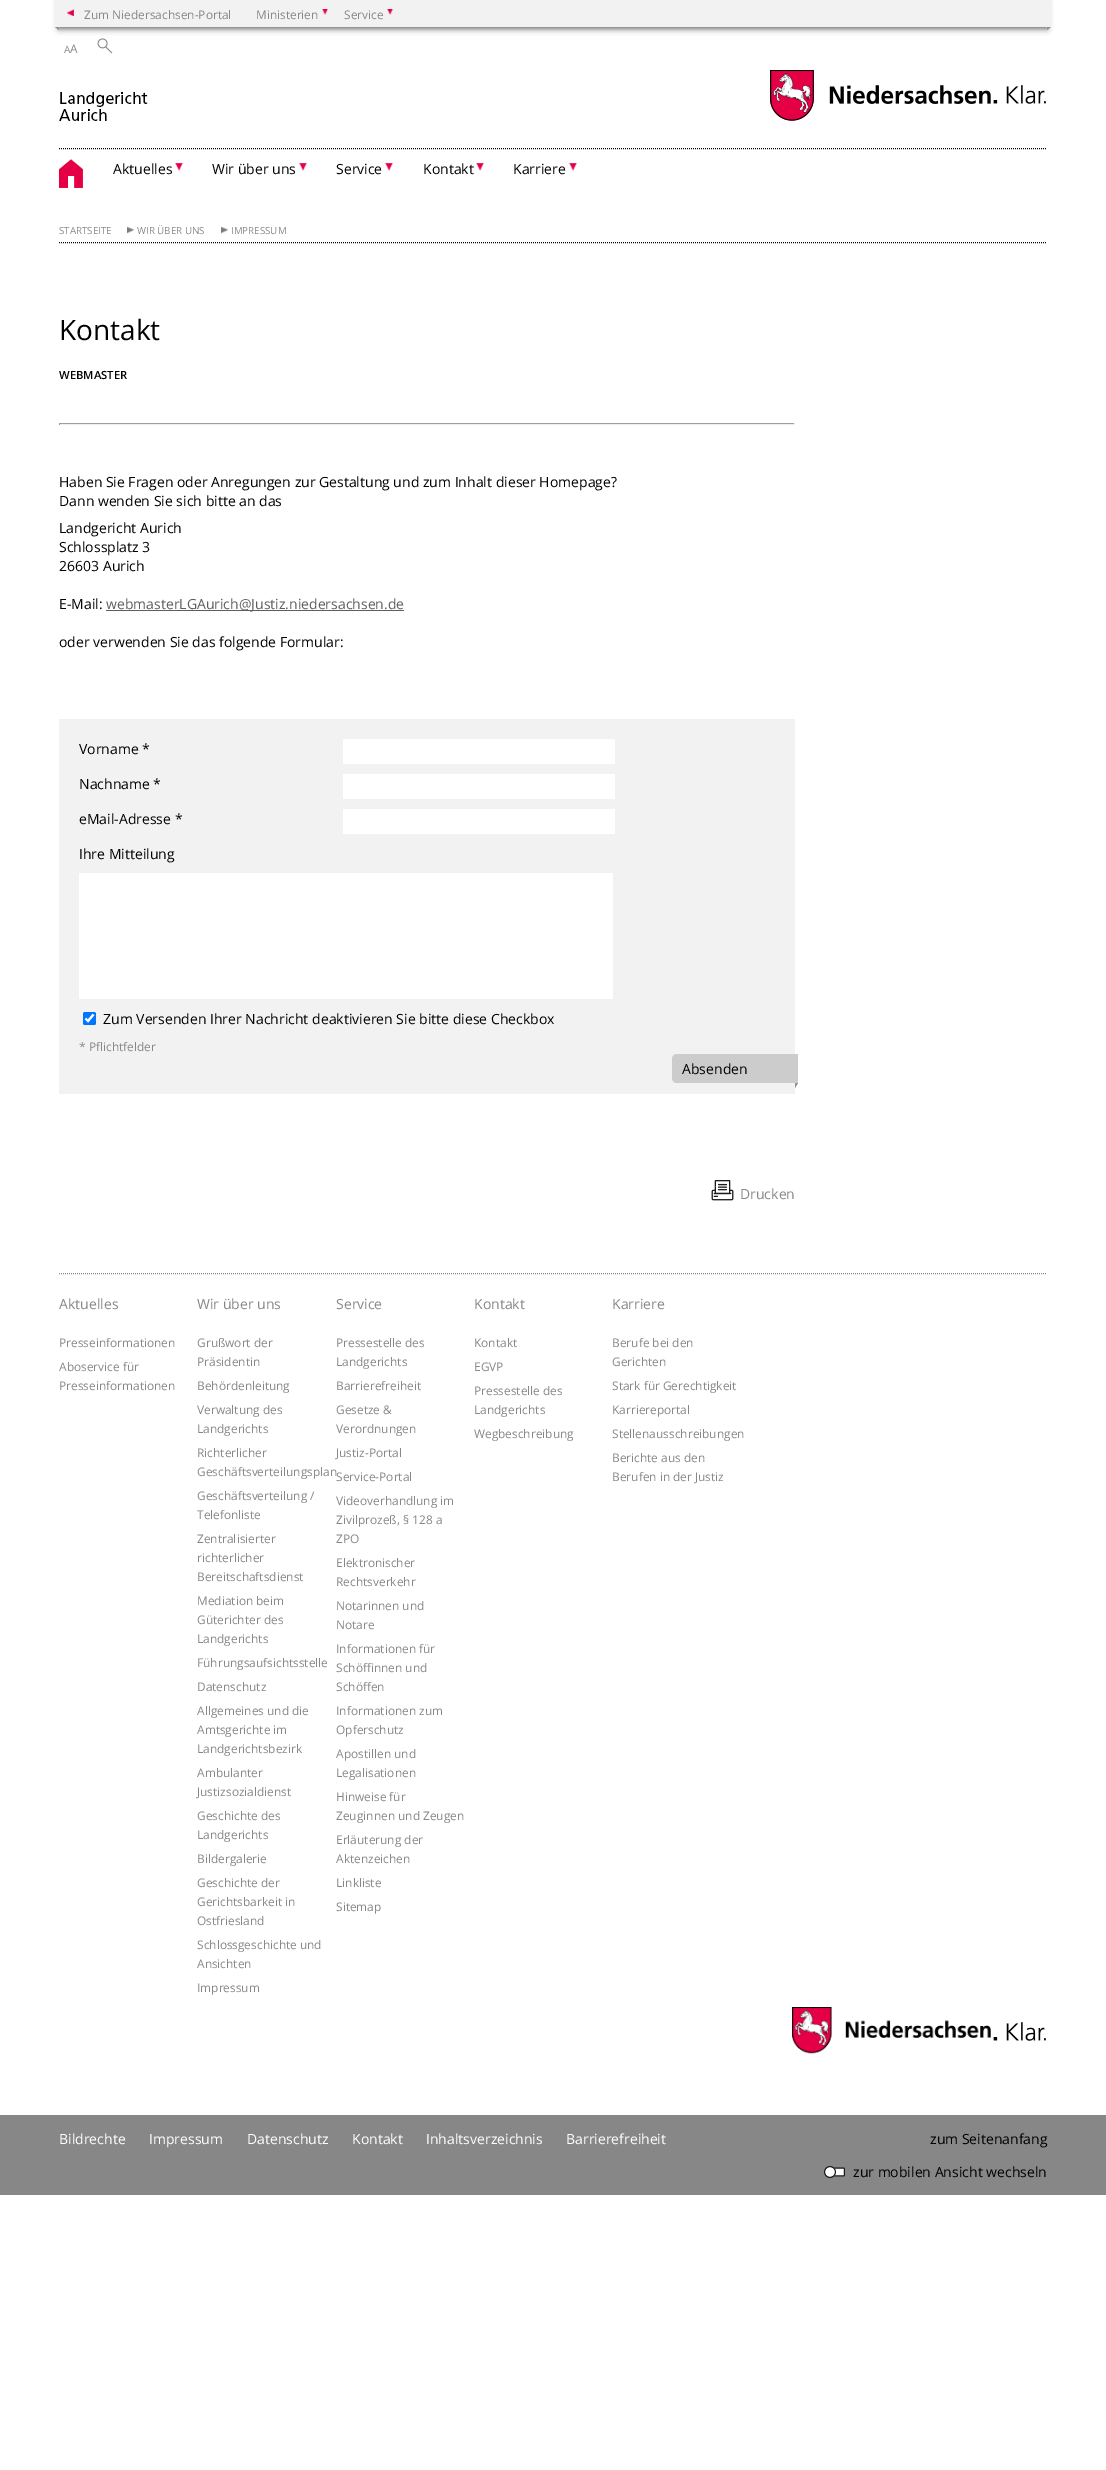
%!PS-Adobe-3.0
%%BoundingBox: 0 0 1106 2470
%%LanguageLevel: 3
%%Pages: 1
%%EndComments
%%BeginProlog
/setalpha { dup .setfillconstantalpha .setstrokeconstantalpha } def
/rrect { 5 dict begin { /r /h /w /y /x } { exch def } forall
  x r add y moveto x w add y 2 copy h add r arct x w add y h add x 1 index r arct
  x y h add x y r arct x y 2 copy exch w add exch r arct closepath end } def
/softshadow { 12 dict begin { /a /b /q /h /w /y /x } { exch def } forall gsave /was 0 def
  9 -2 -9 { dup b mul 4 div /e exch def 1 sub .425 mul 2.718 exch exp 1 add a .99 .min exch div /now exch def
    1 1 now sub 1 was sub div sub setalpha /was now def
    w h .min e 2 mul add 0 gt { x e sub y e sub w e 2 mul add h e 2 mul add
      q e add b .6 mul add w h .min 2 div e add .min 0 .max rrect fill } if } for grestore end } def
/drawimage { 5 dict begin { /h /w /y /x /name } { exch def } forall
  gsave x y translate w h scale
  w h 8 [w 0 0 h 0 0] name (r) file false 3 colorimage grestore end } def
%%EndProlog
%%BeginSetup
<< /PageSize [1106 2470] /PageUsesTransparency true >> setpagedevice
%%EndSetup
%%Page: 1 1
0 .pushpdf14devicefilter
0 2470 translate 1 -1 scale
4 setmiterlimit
1 setgray
0 0 1106 2470 rectfill
(images/3.raw) 97 38 16 16 drawimage
0.4 setgray
59 2 988 27 0 3 1 softshadow
0.949 setgray
54 0 998 27 rectfill
(images/1.raw) 67 9 7 7 drawimage
(images/2.raw) 322 9 7 6 drawimage
(images/2.raw) 387 9 7 6 drawimage
0.565 0.565 0.561 setrgbcolor
newpath 59 27 moveto 59 30 lineto 55 27 lineto closepath fill
newpath 1047 30 moveto 1047 27 lineto 1051 27 lineto closepath fill
(images/4.raw) 59 92 89 29 drawimage
(images/5.raw) 770 70 221 51 drawimage
(images/6.raw) 993 85 53 19 drawimage
0 setgray
[1 1] 0 setdash
newpath 59 148.5 moveto 1047 148.5 lineto stroke
(images/7.raw) 59 159 24 29 drawimage
(images/8.raw) 175 163 8 8 drawimage
(images/8.raw) 299 163 8 8 drawimage
(images/8.raw) 385 163 8 8 drawimage
(images/8.raw) 476 163 8 8 drawimage
(images/8.raw) 569 163 8 8 drawimage
newpath 59 242.5 moveto 1047 242.5 lineto stroke
(images/9.raw) 127 226 7 8 drawimage
(images/9.raw) 221 226 7 8 drawimage
0.624 setgray
59 423 736 1 rectfill
0.933 setgray
794 423 1 2 rectfill
59 424 736 1 rectfill
0.624 setgray
59 423 1 2 rectfill
0.373 0.369 0.369 setrgbcolor
106 610 298 1 rectfill
0.949 setgray
59 719 736 375 rectfill
1 setgray
343 739 272 25 rectfill
343 774 272 25 rectfill
343 809 272 25 rectfill
79 873 534 126 rectfill
0 0.459 1 setrgbcolor
83 1012 13 13 2 rrect fill
1 setgray
2.1 setlinewidth
[] 0 setdash
newpath 85.5 1018.5 moveto 88 1021 lineto 93.5 1014.5 lineto stroke
0.8 setgray
newpath 677 1054 moveto 798 1054 lineto 798 1083 lineto 677 1083 lineto 674 1083 672 1081 672 1078 curveto 672 1059 lineto 672 1056 674 1054 677 1054 curveto closepath fill
0.565 0.565 0.561 setrgbcolor
newpath 795 1088 moveto 795 1083 lineto 798 1083 lineto closepath fill
(images/10.raw) 711 1180 23 21 drawimage
0.529 setgray
1 setlinewidth
[1 1] 0 setdash
newpath 59 1273.5 moveto 1047 1273.5 lineto stroke
(images/11.raw) 792 2007 199 47 drawimage
(images/6.raw) 993 2022 53 19 drawimage
0 2115 1106 80 rectfill
(images/12.raw) 824 2166 21 12 drawimage
/OpenSans-Regular [11.9 0 0 -11.9 0 0] selectfont
84 19 moveto (Zum Niedersachsen-Portal) show
256 19 moveto (Ministerien) show
344 19 moveto (Service) show
/OpenSans-Regular [10 0 0 -10 0 0] selectfont
64 53 moveto (A) show
/OpenSans-Regular [11.9 0 0 -11.9 0 0] selectfont
70 53 moveto (A) show
/OpenSans-Regular [14 0 0 -14 0 0] selectfont
0 setgray
113 174 moveto (Aktuelles) show
212 174 moveto (Wir über uns) show
336 174 moveto (Service) show
423 174 moveto (Kontakt) show
513 174 moveto (Karriere) show
/OpenSans-Regular [9.75 0 0 -9.75 0 0] selectfont
0.529 setgray
59 234 moveto (STARTSEITE) show
137 234 moveto (WIR ÜBER UNS) show
231 234 moveto (IMPRESSUM) show
/OpenSans-Regular [28 0 0 -28 0 0] selectfont
0 setgray
59 340 moveto (Kontakt) show
/OpenSans-SemiBold [11.25 0 0 -11.25 0 0] selectfont
59 379 moveto (WEBMASTER) show
/OpenSans-Regular [14 0 0 -14 0 0] selectfont
59 487 moveto (Haben Sie Fragen oder Anregungen zur Gestaltung und zum Inhalt dieser Homepage?) show
59 506 moveto (Dann wenden Sie sich bitte an das) show
59 533 moveto (Landgericht Aurich) show
59 552 moveto (Schlossplatz 3) show
59 571 moveto (26603 Aurich) show
59 609 moveto (E-Mail:) show
0.373 0.369 0.369 setrgbcolor
106 609 moveto (webmasterLGAurich@Justiz.niedersachsen.de) show
0 setgray
59 647 moveto (oder verwenden Sie das folgende Formular:) show
79 754 moveto (Vorname *) show
79 789 moveto (Nachname *) show
79 824 moveto (eMail-Adresse *) show
79 859 moveto (Ihre Mitteilung) show
103 1024 moveto (Zum Versenden Ihrer Nachricht deaktivieren Sie bitte diese Checkbox) show
/OpenSans-Regular [11.9 0 0 -11.9 0 0] selectfont
0.529 setgray
79 1051 moveto (* Pflichtfelder) show
/OpenSans-Regular [14 0 0 -14 0 0] selectfont
0 setgray
682 1074 moveto (Absenden) show
0.529 setgray
740 1199 moveto (Drucken) show
59 1309 moveto (Aktuelles) show
/OpenSans-Regular [11.9 0 0 -11.9 0 0] selectfont
59 1347 moveto (Presseinformationen) show
59 1371 moveto (Aboservice für) show
59 1390 moveto (Presseinformationen) show
/OpenSans-Regular [14 0 0 -14 0 0] selectfont
197 1309 moveto (Wir über uns) show
/OpenSans-Regular [11.9 0 0 -11.9 0 0] selectfont
197 1347 moveto (Grußwort der) show
197 1366 moveto (Präsidentin) show
197 1390 moveto (Behördenleitung) show
197 1414 moveto (Verwaltung des) show
197 1433 moveto (Landgerichts) show
197 1457 moveto (Richterlicher) show
197 1476 moveto (Geschäftsverteilungsplan) show
197 1500 moveto (Geschäftsverteilung /) show
197 1519 moveto (Telefonliste) show
197 1543 moveto (Zentralisierter) show
197 1562 moveto (richterlicher) show
197 1581 moveto (Bereitschaftsdienst) show
197 1605 moveto (Mediation beim) show
197 1624 moveto (Güterichter des) show
197 1643 moveto (Landgerichts) show
197 1667 moveto (Führungsaufsichtsstelle) show
197 1691 moveto (Datenschutz) show
197 1715 moveto (Allgemeines und die) show
197 1734 moveto (Amtsgerichte im) show
197 1753 moveto (Landgerichtsbezirk) show
197 1777 moveto (Ambulanter) show
197 1796 moveto (Justizsozialdienst) show
197 1820 moveto (Geschichte des) show
197 1839 moveto (Landgerichts) show
197 1863 moveto (Bildergalerie) show
197 1887 moveto (Geschichte der) show
197 1906 moveto (Gerichtsbarkeit in) show
197 1925 moveto (Ostfriesland) show
197 1949 moveto (Schlossgeschichte und) show
197 1968 moveto (Ansichten) show
197 1992 moveto (Impressum) show
/OpenSans-Regular [14 0 0 -14 0 0] selectfont
336 1309 moveto (Service) show
/OpenSans-Regular [11.9 0 0 -11.9 0 0] selectfont
336 1347 moveto (Pressestelle des) show
336 1366 moveto (Landgerichts) show
336 1390 moveto (Barrierefreiheit) show
336 1414 moveto (Gesetze &) show
336 1433 moveto (Verordnungen) show
336 1457 moveto (Justiz-Portal) show
336 1481 moveto (Service-Portal) show
336 1505 moveto (Videoverhandlung im) show
336 1524 moveto (Zivilprozeß, § 128 a) show
336 1543 moveto (ZPO) show
336 1567 moveto (Elektronischer) show
336 1586 moveto (Rechtsverkehr) show
336 1610 moveto (Notarinnen und) show
336 1629 moveto (Notare) show
336 1653 moveto (Informationen für) show
336 1672 moveto (Schöffinnen und) show
336 1691 moveto (Schöffen) show
336 1715 moveto (Informationen zum) show
336 1734 moveto (Opferschutz) show
336 1758 moveto (Apostillen und) show
336 1777 moveto (Legalisationen) show
336 1801 moveto (Hinweise für) show
336 1820 moveto (Zeuginnen und Zeugen) show
336 1844 moveto (Erläuterung der) show
336 1863 moveto (Aktenzeichen) show
336 1887 moveto (Linkliste) show
336 1911 moveto (Sitemap) show
/OpenSans-Regular [14 0 0 -14 0 0] selectfont
474 1309 moveto (Kontakt) show
/OpenSans-Regular [11.9 0 0 -11.9 0 0] selectfont
474 1347 moveto (Kontakt) show
474 1371 moveto (EGVP) show
474 1395 moveto (Pressestelle des) show
474 1414 moveto (Landgerichts) show
474 1438 moveto (Wegbeschreibung) show
/OpenSans-Regular [14 0 0 -14 0 0] selectfont
612 1309 moveto (Karriere) show
/OpenSans-Regular [11.9 0 0 -11.9 0 0] selectfont
612 1347 moveto (Berufe bei den) show
612 1366 moveto (Gerichten) show
612 1390 moveto (Stark für Gerechtigkeit) show
612 1414 moveto (Karriereportal) show
612 1438 moveto (Stellenausschreibungen) show
612 1462 moveto (Berichte aus den) show
612 1481 moveto (Berufen in der Justiz) show
/OpenSans-Regular [14 0 0 -14 0 0] selectfont
1 setgray
59 2144 moveto (Bildrechte) show
149 2144 moveto (Impressum) show
247 2144 moveto (Datenschutz) show
352 2144 moveto (Kontakt) show
426 2144 moveto (Inhaltsverzeichnis) show
566 2144 moveto (Barrierefreiheit) show
0 setgray
930 2144 moveto (zum Seitenanfang) show
853 2177 moveto (zur mobilen Ansicht wechseln) show
.poppdf14devicefilter showpage
%%EOF
